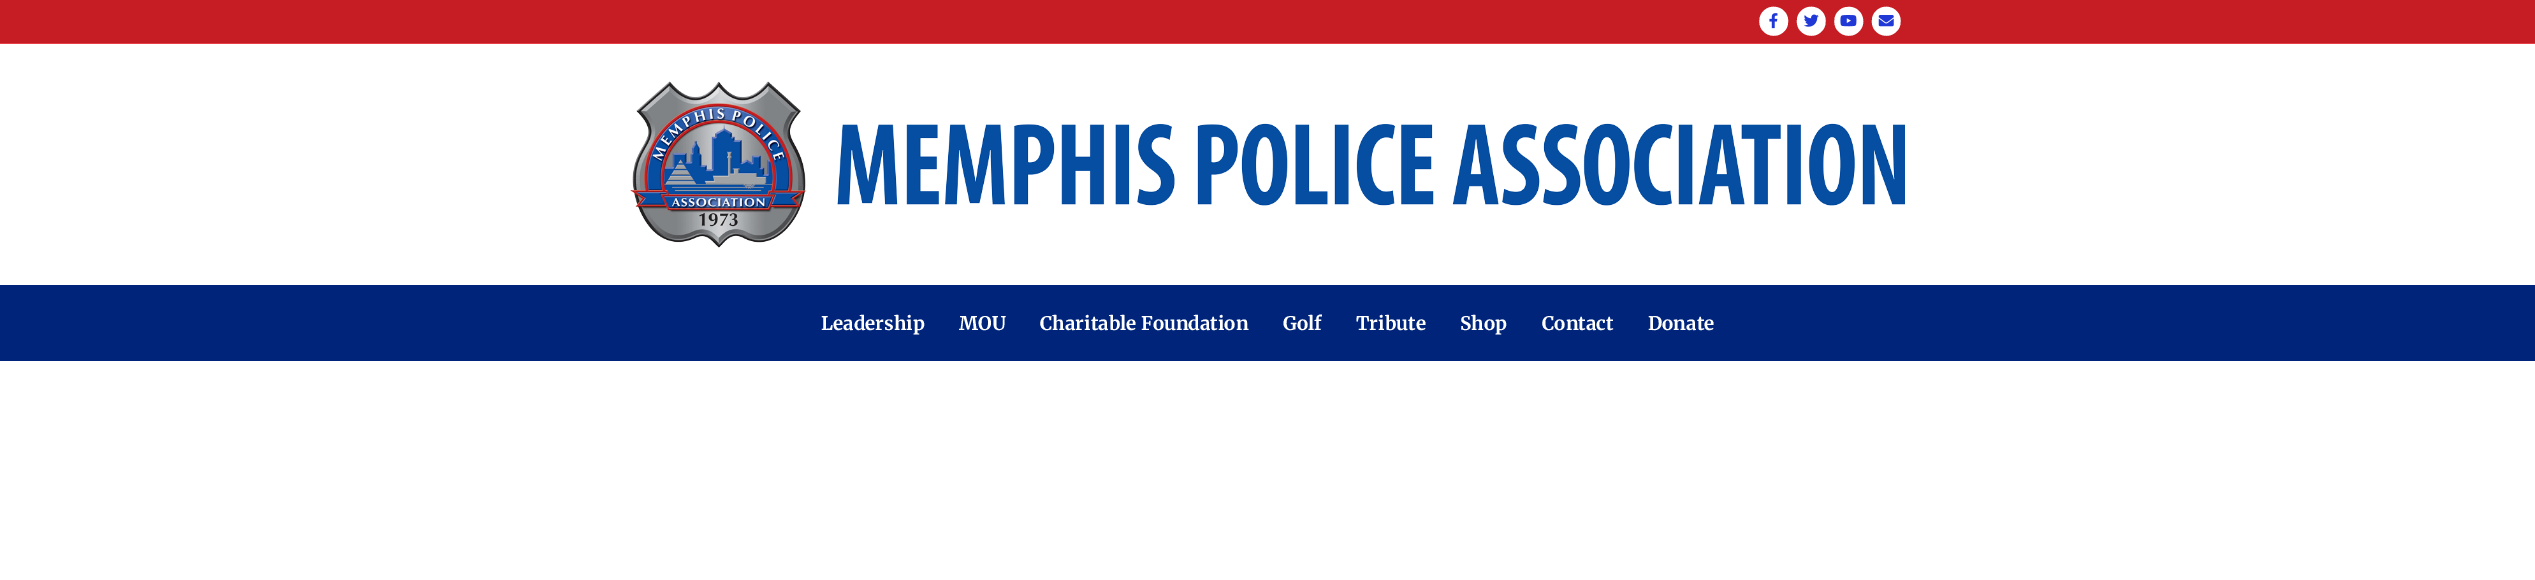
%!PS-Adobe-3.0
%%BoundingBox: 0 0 2535 580
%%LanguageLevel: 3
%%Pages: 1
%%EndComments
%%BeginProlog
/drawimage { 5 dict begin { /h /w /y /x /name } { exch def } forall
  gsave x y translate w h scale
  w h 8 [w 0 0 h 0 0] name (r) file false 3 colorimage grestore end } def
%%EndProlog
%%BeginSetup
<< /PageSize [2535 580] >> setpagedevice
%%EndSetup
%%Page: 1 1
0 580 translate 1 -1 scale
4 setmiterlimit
0.773 0.114 0.137 setrgbcolor
0 0 2535 580 rectfill
0.89 0.255 0.278 setrgbcolor
0 43 2535 1 rectfill
1 setgray
newpath 1763.5 11 moveto 1773 1.5 1789.5 9 1788 22.5 curveto 1788 26 1786.5 29 1784 31.5 curveto 1774.5 41 1758 33.5 1759.5 20 curveto 1759.5 16.5 1761 13.5 1763.5 11 curveto closepath fill
(images/1.raw) 1769 13 9 16 drawimage
newpath 1801 11 moveto 1810.5 1.5 1827 9 1825.5 22.5 curveto 1825.5 26 1824 29 1821.5 31.5 curveto 1812 41 1795.5 33.5 1797 20 curveto 1797 16.5 1798.5 13.5 1801 11 curveto closepath fill
(images/2.raw) 1804 14 15 13 drawimage
newpath 1838.5 11 moveto 1841 8.5 1844 7 1847.5 7 curveto 1861 5.5 1868.5 22 1859 31.5 curveto 1849.5 41 1833 33.5 1834.5 20 curveto 1834.5 16.5 1836 13.5 1838.5 11 curveto closepath fill
(images/3.raw) 1840 15 17 12 drawimage
newpath 1876 11 moveto 1885.5 1.5 1902 9 1900.5 22.5 curveto 1900.5 26 1899 29 1896.5 31.5 curveto 1887 41 1870.5 33.5 1872 20 curveto 1872 16.5 1873.5 13.5 1876 11 curveto closepath fill
(images/4.raw) 1878 15 16 12 drawimage
0 44 2535 241 rectfill
(images/5.raw) 630 81 1275 167 drawimage
0 0.141 0.478 setrgbcolor
0 285 2535 76 rectfill
1 setgray
0 361 2535 219 rectfill
/Merriweather-Light [18.75 0 0 -18.75 0 0] selectfont
821 330 moveto (Leadership) show
959 330 moveto (MOU) show
1040 330 moveto (Charitable Foundation) show
1283 330 moveto (Golf) show
1356 330 moveto (Tribute) show
1460 330 moveto (Shop) show
1542 330 moveto (Contact) show
1648 330 moveto (Donate) show
showpage
%%EOF
